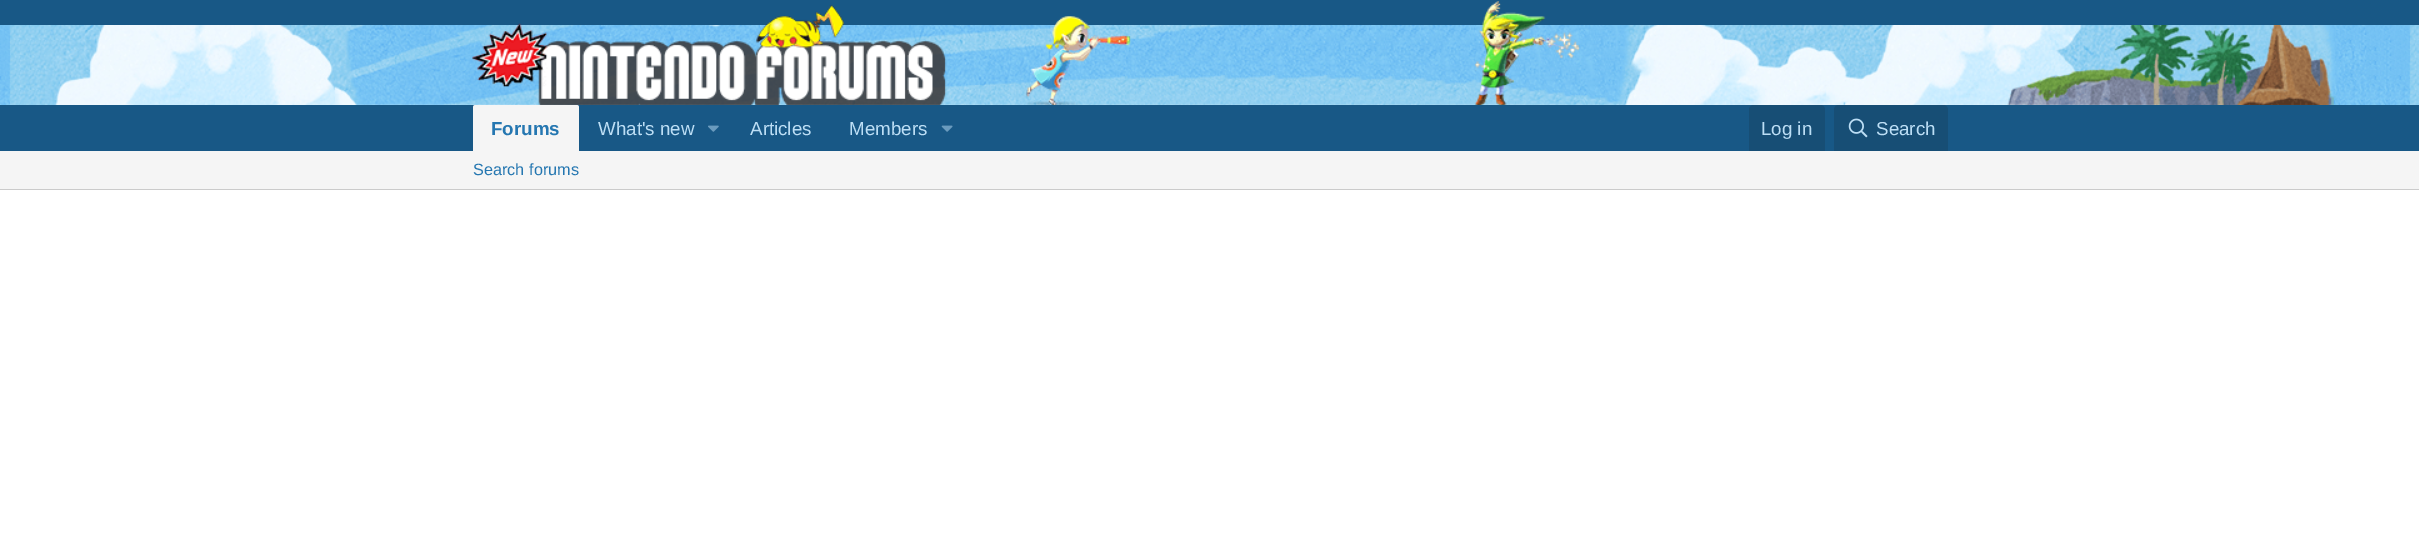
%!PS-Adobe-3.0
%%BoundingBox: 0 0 2419 537
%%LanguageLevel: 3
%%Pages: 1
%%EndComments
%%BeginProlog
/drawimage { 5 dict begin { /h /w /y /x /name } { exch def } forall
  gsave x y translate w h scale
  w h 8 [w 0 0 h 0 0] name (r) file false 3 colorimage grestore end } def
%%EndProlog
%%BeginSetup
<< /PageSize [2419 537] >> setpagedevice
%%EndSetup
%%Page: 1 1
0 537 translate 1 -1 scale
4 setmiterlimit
0.094 0.345 0.525 setrgbcolor
0 0 2419 537 rectfill
1 setgray
0 190 2419 347 rectfill
(images/1.raw) 0 25 2419 80 drawimage
(images/2.raw) 472 1 1108 104 drawimage
0.961 setgray
newpath 475.5 105 moveto 576.5 105 lineto 578 105 579 106 579 107.5 curveto 579 151 lineto 473 151 lineto 473 107.5 lineto 473 106 474 105 475.5 105 curveto closepath fill
(images/3.raw) 708 125 11 7 drawimage
(images/4.raw) 941 125 12 7 drawimage
0.09 0.306 0.459 setrgbcolor
newpath 1754 105 moveto 1820 105 lineto 1823 105 1825 107 1825 110 curveto 1825 151 lineto 1749 151 lineto 1749 110 lineto 1749 107 1751 105 1754 105 curveto closepath fill
newpath 1839 105 moveto 1943 105 lineto 1946 105 1948 107 1948 110 curveto 1948 151 lineto 1834 151 lineto 1834 110 lineto 1834 107 1836 105 1839 105 curveto closepath fill
(images/5.raw) 1848 118 20 20 drawimage
0.961 setgray
0 151 2419 38 rectfill
0.796 setgray
0 189 2419 1 rectfill
/LiberationSans-Bold [18.75 0 0 -18.75 0 0] selectfont
0.145 0.467 0.694 setrgbcolor
491 135 moveto (Forums) show
/LiberationSans-Regular [18.75 0 0 -18.75 0 0] selectfont
0.737 0.871 0.961 setrgbcolor
598 135 moveto (What's new) show
750 135 moveto (Articles) show
849 135 moveto (Members) show
1761 135 moveto (Log in) show
1876 135 moveto (Search) show
/LiberationSans-Regular [16.25 0 0 -16.25 0 0] selectfont
0.145 0.467 0.694 setrgbcolor
473 175 moveto (Search forums) show
showpage
%%EOF
